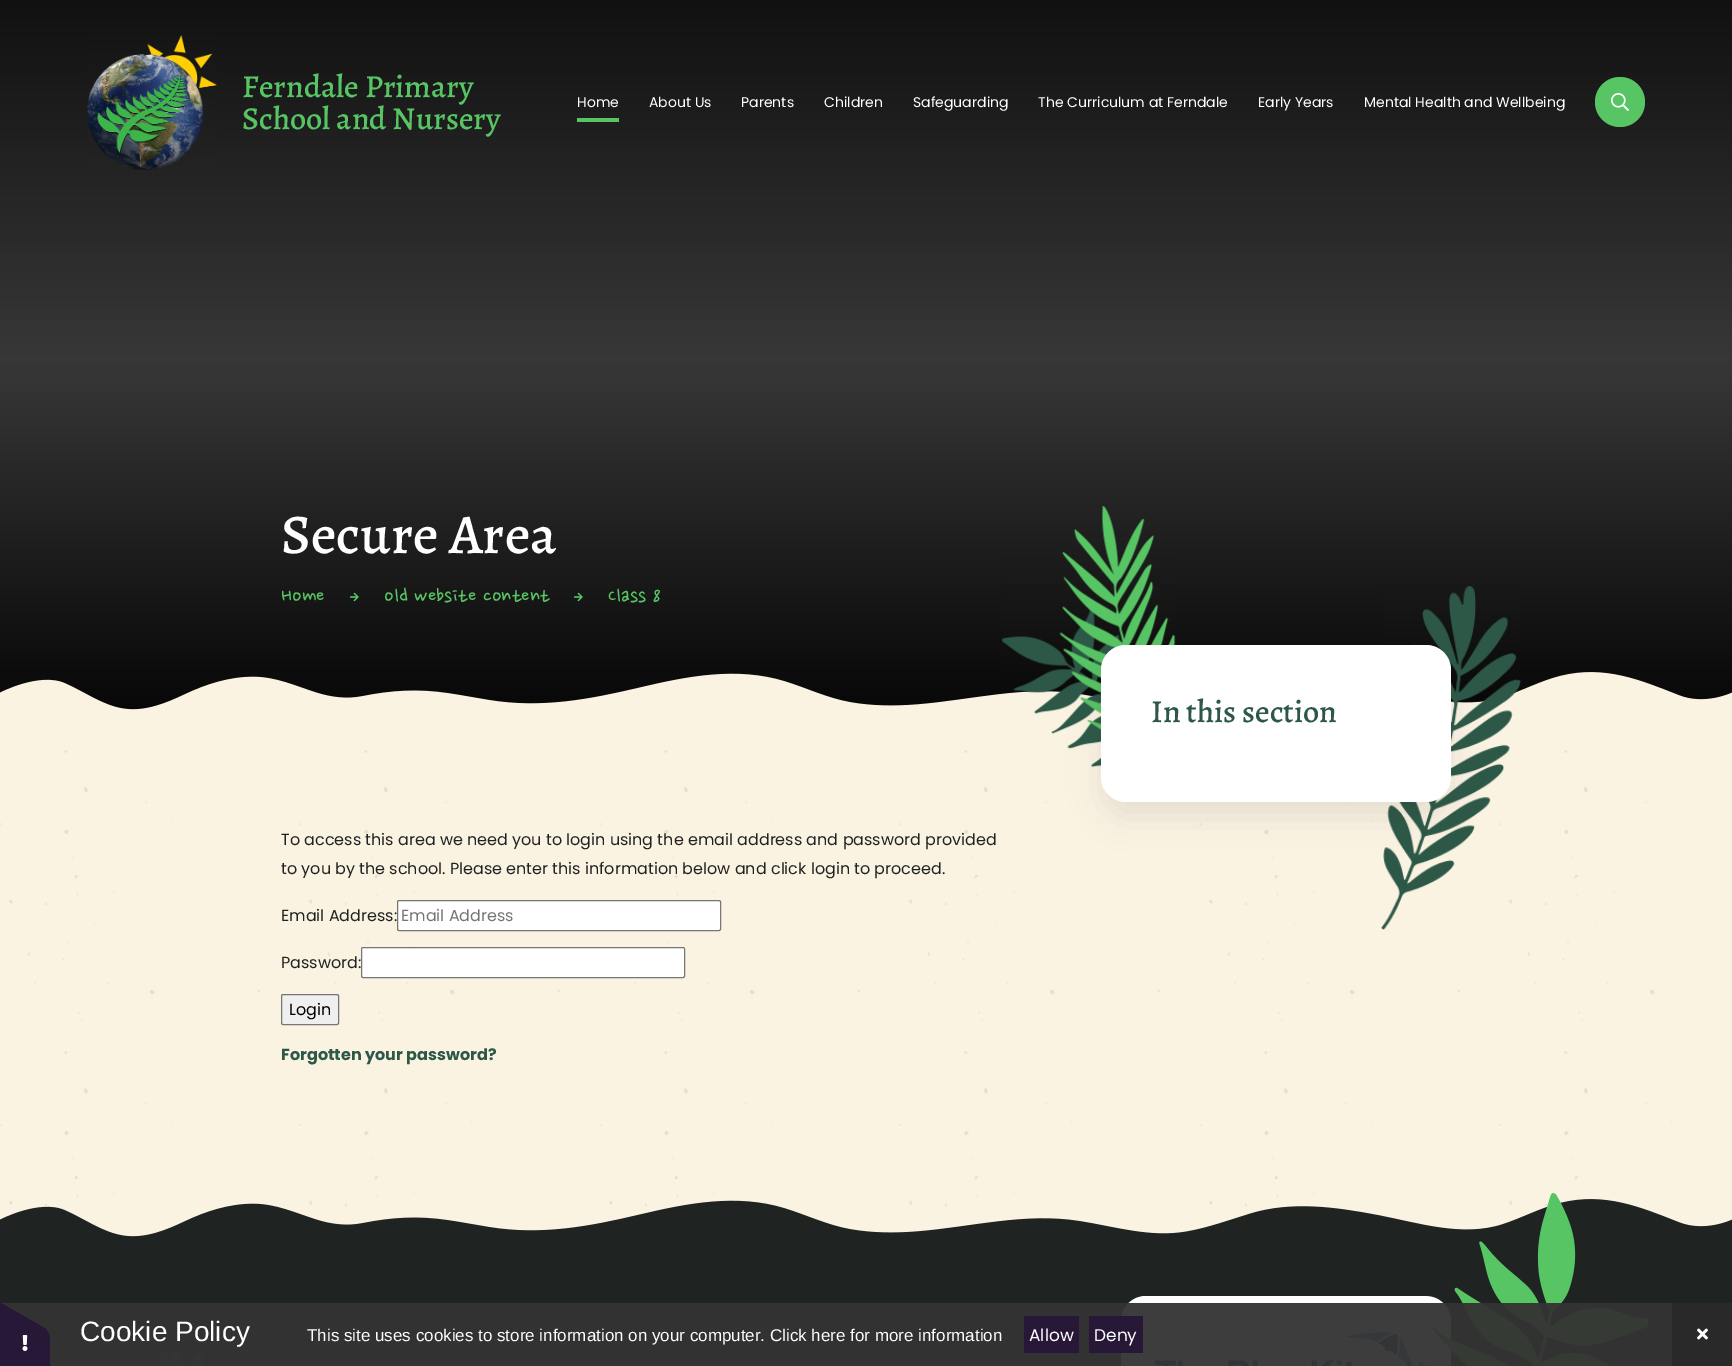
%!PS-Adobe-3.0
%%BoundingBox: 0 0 1732 1366
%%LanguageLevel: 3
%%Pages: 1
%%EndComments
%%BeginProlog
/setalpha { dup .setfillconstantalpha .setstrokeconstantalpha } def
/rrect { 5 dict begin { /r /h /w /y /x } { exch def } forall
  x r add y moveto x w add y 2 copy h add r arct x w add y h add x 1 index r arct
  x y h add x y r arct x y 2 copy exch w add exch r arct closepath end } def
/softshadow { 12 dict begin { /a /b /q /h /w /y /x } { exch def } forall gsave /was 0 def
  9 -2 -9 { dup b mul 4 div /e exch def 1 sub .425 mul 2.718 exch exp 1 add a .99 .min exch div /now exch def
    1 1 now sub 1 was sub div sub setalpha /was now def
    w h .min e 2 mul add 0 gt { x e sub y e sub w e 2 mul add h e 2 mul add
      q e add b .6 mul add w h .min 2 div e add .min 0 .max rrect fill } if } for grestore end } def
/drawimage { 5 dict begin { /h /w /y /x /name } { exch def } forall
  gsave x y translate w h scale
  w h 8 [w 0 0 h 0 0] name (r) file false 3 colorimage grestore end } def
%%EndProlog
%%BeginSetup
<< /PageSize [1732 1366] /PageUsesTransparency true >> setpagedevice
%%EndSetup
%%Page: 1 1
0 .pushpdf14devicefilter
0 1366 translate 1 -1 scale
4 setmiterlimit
0.984 0.953 0.886 setrgbcolor
0 0 1732 1366 rectfill
gsave newpath 0 0 moveto 1732 0 lineto 1732 710 lineto 0 710 lineto closepath clip newpath
<< /ShadingType 2 /ColorSpace /DeviceRGB /Coords [866 0 866 720] /Extend [true true] /Function << /FunctionType 3 /Domain [0 1] /Functions [<< /FunctionType 2 /Domain [0 1] /C0 [0.067 0.067 0.067] /C1 [0.216 0.216 0.216] /N 1 >> << /FunctionType 2 /Domain [0 1] /C0 [0.216 0.216 0.216] /C1 [0.024 0.024 0.024] /N 1 >>] /Bounds [0.5] /Encode [0 1 0 1] >> >> shfill grestore
(images/1.raw) 87 35 130 135 drawimage
0.341 0.773 0.392 setrgbcolor
577 118 42 4 rectfill
newpath 1620 102 25 0 360 arc closepath fill
(images/2.raw) 1611 93 18 18 drawimage
(images/3.raw) 350 592 9 10 drawimage
(images/3.raw) 574 592 9 10 drawimage
(images/4.raw) 0 672 1732 48 drawimage
(images/5.raw) 0 750 1725 476 drawimage
(images/6.raw) 1002 506 174 262 drawimage
(images/7.raw) 1381 586 140 344 drawimage
0.122 0.137 0.133 setrgbcolor
1101 661 350 157 25 16 0.1 softshadow
1 setgray
1101 645 350 157 25 rrect fill
397.5 900.5 323 30 1.5 rrect gsave fill grestore
0.463 setgray
stroke
1 setgray
361.5 947.5 323 30 1.5 rrect gsave fill grestore
0.463 setgray
stroke
0.937 setgray
281.5 994.5 57 30 1.5 rrect gsave fill grestore
0.463 setgray
stroke
0.122 0.137 0.133 setrgbcolor
0 1246 1732 120 rectfill
(images/8.raw) 159 1350 46 16 drawimage
1 setgray
1121 1296 330 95 25 rrect fill
(images/9.raw) 1154 1332 259 34 drawimage
(images/11.raw) 0 1199 1732 47 drawimage
(images/10.raw) 1418 1193 230 173 drawimage
0.95 setalpha
0.2 setgray
1 1303 1671 63 rectfill
1 setalpha
0.157 0.094 0.22 setrgbcolor
newpath 50 1339 moveto 50 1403 lineto 50 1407 48 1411 46 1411 curveto -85 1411 lineto -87 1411 -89 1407 -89 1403 curveto -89 1339 lineto -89 1334 -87 1331 -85 1331 curveto 46 1331 lineto 48 1331 50 1334 50 1339 curveto closepath fill
newpath -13 1295 moveto 43 1327 lineto 47 1329 49 1332 48 1334 curveto -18 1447 lineto -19 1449 -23 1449 -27 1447 curveto -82 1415 lineto -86 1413 -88 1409 -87 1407 curveto -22 1294 lineto -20 1292 -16 1293 -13 1295 curveto closepath fill
(images/12.raw) 22 1335 6 16 drawimage
1024 1316 55 37 rectfill
1089 1316 54 37 rectfill
0.161 setgray
1672 1303 60 63 rectfill
(images/13.raw) 1697 1328 11 12 drawimage
/Alegreya-Medium [32 0 0 -32 0 0] selectfont
0.341 0.773 0.392 setrgbcolor
242 97 moveto (Ferndale Primary) show
242 129 moveto (School and Nursery) show
/Poppins-Regular [14 0 0 -14 0 0] selectfont
1 setgray
577 107 moveto (Home) show
649 107 moveto (About Us) show
741 107 moveto (Parents) show
824 107 moveto (Children) show
913 107 moveto (Safeguarding) show
1038 107 moveto (The Curriculum at Ferndale) show
1258 107 moveto (Early Years) show
1364 107 moveto (Mental Health and Wellbeing) show
/Alegreya-Medium [56 0 0 -56 0 0] selectfont
281 553 moveto (Secure Area) show
/NanumPen-Regular [24 0 0 -24 0 0] selectfont
0.341 0.773 0.392 setrgbcolor
281 604 moveto (Home) show
384 604 moveto (old website content) show
608 604 moveto (Class 8) show
/Alegreya-Medium [32 0 0 -32 0 0] selectfont
0.176 0.345 0.278 setrgbcolor
1151 722 moveto (In this section) show
/Poppins-Regular [16 0 0 -16 0 0] selectfont
0.122 0.137 0.133 setrgbcolor
281 845 moveto (To access this area we need you to login using the email address and password provided) show
281 874 moveto (to you by the school. Please enter this information below and click login to proceed.) show
281 921 moveto (Email Address:) show
0.459 setgray
401 921 moveto (Email Address) show
0.122 0.137 0.133 setrgbcolor
281 968 moveto (Password:) show
0 setgray
289 1015 moveto (Login) show
/Poppins-Bold [16 0 0 -16 0 0] selectfont
0.176 0.345 0.278 setrgbcolor
281 1060 moveto (Forgotten your password?) show
/LiberationSans-Regular [28 0 0 -28 0 0] selectfont
1 setgray
80 1341 moveto (Cookie Policy) show
/LiberationSans-Regular [17 0 0 -17 0 0] selectfont
307 1341 moveto (This site uses cookies to store information on your computer. Click here for more information) show
/Poppins-Regular [17 0 0 -17 0 0] selectfont
1029 1341 moveto (Allow) show
1094 1341 moveto (Deny) show
.poppdf14devicefilter showpage
%%EOF
